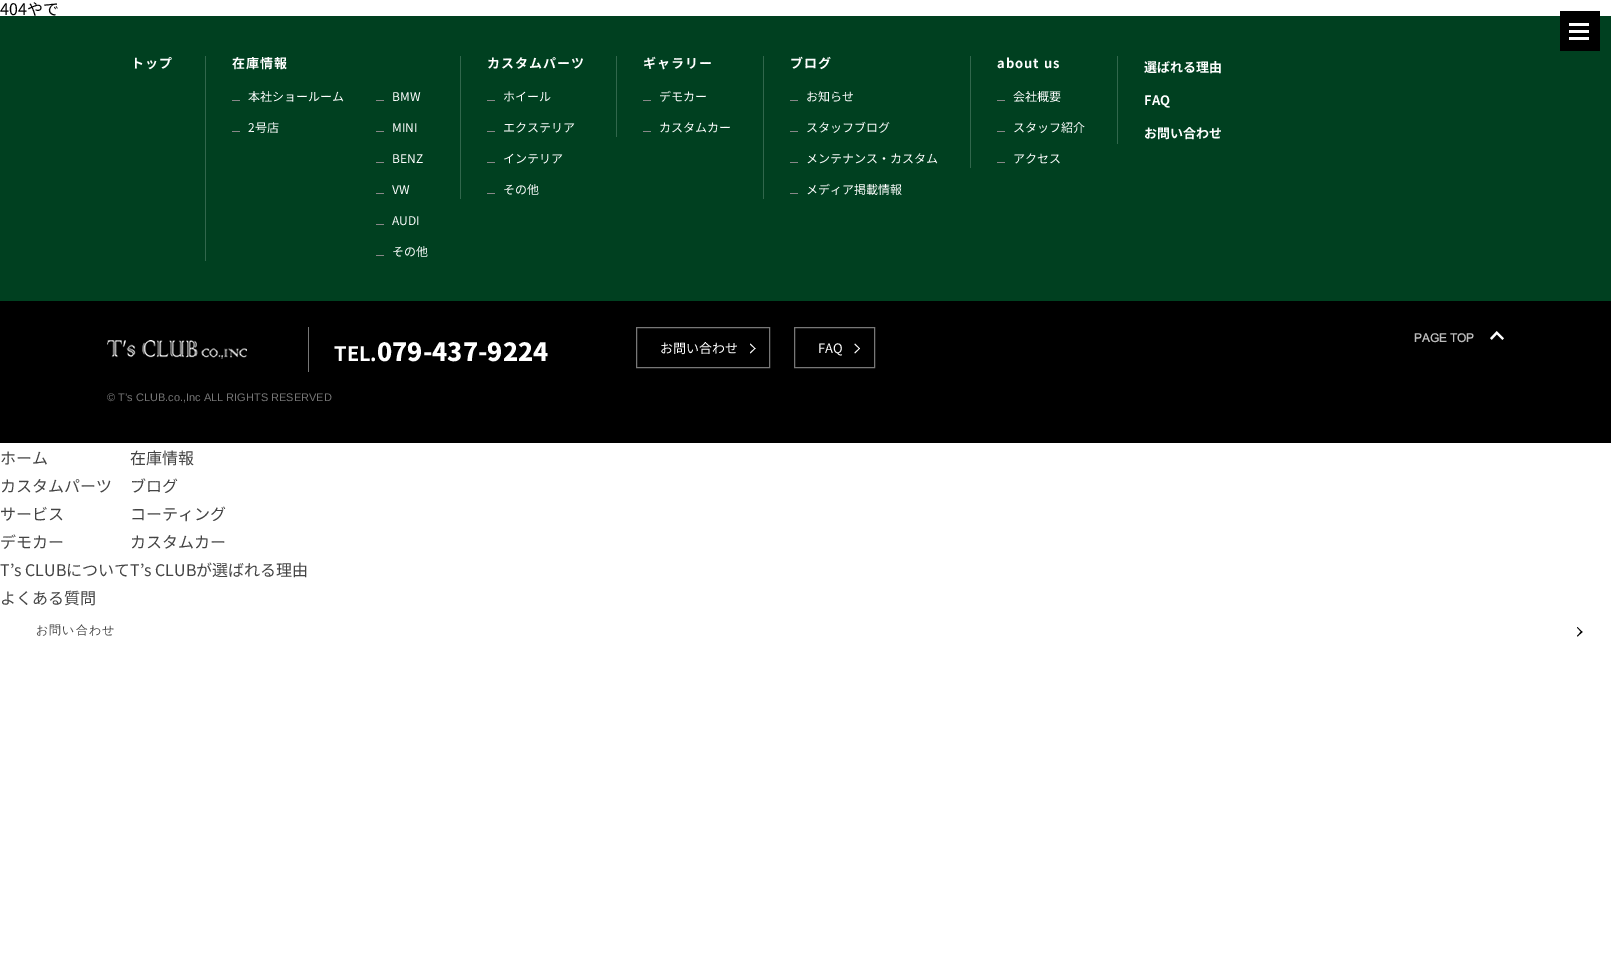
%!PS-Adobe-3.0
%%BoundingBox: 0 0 1611 958
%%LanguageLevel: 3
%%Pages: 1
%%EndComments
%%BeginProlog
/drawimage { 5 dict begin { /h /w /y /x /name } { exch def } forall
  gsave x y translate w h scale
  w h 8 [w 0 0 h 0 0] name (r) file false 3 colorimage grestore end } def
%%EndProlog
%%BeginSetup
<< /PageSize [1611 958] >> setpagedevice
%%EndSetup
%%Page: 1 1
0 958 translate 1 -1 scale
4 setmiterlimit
1 setgray
0 0 1611 958 rectfill
0 0.251 0.125 setrgbcolor
0 16 1611 285 rectfill
0 setgray
1560 11 40 40 rectfill
1 setgray
1569 23 20 3 rectfill
1569 30 20 3 rectfill
1569 37 20 3 rectfill
0.192 0.404 0.298 setrgbcolor
205 56 1 205 rectfill
0.533 setgray
232 100 8 1 rectfill
232 131 8 1 rectfill
376 100 8 1 rectfill
376 131 8 1 rectfill
376 162 8 1 rectfill
376 193 8 1 rectfill
376 224 8 1 rectfill
376 255 8 1 rectfill
0.192 0.404 0.298 setrgbcolor
460 56 1 143 rectfill
0.533 setgray
487 100 8 1 rectfill
487 131 8 1 rectfill
487 162 8 1 rectfill
487 193 8 1 rectfill
0.192 0.404 0.298 setrgbcolor
616 56 1 81 rectfill
0.533 setgray
643 100 8 1 rectfill
643 131 8 1 rectfill
0.192 0.404 0.298 setrgbcolor
763 56 1 143 rectfill
0.533 setgray
790 100 8 1 rectfill
790 131 8 1 rectfill
790 162 8 1 rectfill
790 193 8 1 rectfill
0.192 0.404 0.298 setrgbcolor
970 56 1 112 rectfill
0.533 setgray
997 100 8 1 rectfill
997 131 8 1 rectfill
997 162 8 1 rectfill
0.192 0.404 0.298 setrgbcolor
1117 56 1 88 rectfill
0 setgray
0 301 1611 142 rectfill
(images/1.raw) 1414 331 90 12 drawimage
0.467 setgray
308 327 1 45 rectfill
(images/2.raw) 107 340 140 19 drawimage
636.5 327.5 133 40 rectstroke
1 setgray
newpath 750 344.5 moveto 750.5 343.5 lineto 755.5 348.5 lineto 755 349 lineto closepath fill
newpath 750 352.5 moveto 755 348 lineto 755.5 348.5 lineto 750.5 353.5 lineto closepath fill
0.467 setgray
794.5 327.5 80 40 rectstroke
1 setgray
newpath 854.5 344.5 moveto 855 343.5 lineto 860 348.5 lineto 859.5 349 lineto closepath fill
newpath 854.5 352.5 moveto 859.5 348 lineto 860 348.5 lineto 855 353.5 lineto closepath fill
0 setgray
newpath 1577 627.5 moveto 1577.5 627 lineto 1582.5 632 lineto 1581.5 632.5 lineto closepath fill
newpath 1577 636 moveto 1581.5 631 lineto 1582.5 632 lineto 1577.5 636.5 lineto closepath fill
/NotoSansJP-Regular [16 0 0 -16 0 0] selectfont
0 15 moveto (404やで) show
/NotoSansJP-Bold [13 0 0 -13 0 0] selectfont
1 setgray
131 68 moveto 1 0 (トップ) ashow
232 68 moveto 1 0 (在庫情報) ashow
/NotoSansJP-Regular [12 0 0 -12 0 0] selectfont
248 101 moveto (本社ショールーム) show
248 132 moveto (2号店) show
392 101 moveto (BMW) show
392 132 moveto (MINI) show
392 163 moveto (BENZ) show
392 194 moveto (VW) show
392 225 moveto (AUDI) show
392 256 moveto (その他) show
/NotoSansJP-Bold [13 0 0 -13 0 0] selectfont
487 68 moveto 1 0 (カスタムパーツ) ashow
/NotoSansJP-Regular [12 0 0 -12 0 0] selectfont
503 101 moveto (ホイール) show
503 132 moveto (エクステリア) show
503 163 moveto (インテリア) show
503 194 moveto (その他) show
/NotoSansJP-Bold [13 0 0 -13 0 0] selectfont
643 68 moveto 1 0 (ギャラリー) ashow
/NotoSansJP-Regular [12 0 0 -12 0 0] selectfont
659 101 moveto (デモカー) show
659 132 moveto (カスタムカー) show
/NotoSansJP-Bold [13 0 0 -13 0 0] selectfont
790 68 moveto 1 0 (ブログ) ashow
/NotoSansJP-Regular [12 0 0 -12 0 0] selectfont
806 101 moveto (お知らせ) show
806 132 moveto (スタッフブログ) show
806 163 moveto (メンテナンス・カスタム) show
806 194 moveto (メディア掲載情報) show
/NotoSansJP-Bold [13 0 0 -13 0 0] selectfont
997 68 moveto 1 0 (about us) ashow
/NotoSansJP-Regular [12 0 0 -12 0 0] selectfont
1013 101 moveto (会社概要) show
1013 132 moveto (スタッフ紹介) show
1013 163 moveto (アクセス) show
/NotoSansJP-Bold [13 0 0 -13 0 0] selectfont
1144 72 moveto (選ばれる理由) show
1144 105 moveto (FAQ) show
1144 138 moveto (お問い合わせ) show
/NotoSansJP-Bold [20 0 0 -20 0 0] selectfont
334 361 moveto (TEL.) show
/NotoSansJP-Black [25 0 0 -25 0 0] selectfont
377 361 moveto (079-437-9224) show
/NotoSansJP-Regular [13 0 0 -13 0 0] selectfont
660 353 moveto (お問い合わせ) show
818 353 moveto (FAQ) show
/LiberationSans-Regular [11 0 0 -11 0 0] selectfont
0.467 setgray
107 401 moveto (© T’s CLUB.co.,Inc ALL RIGHTS RESERVED) show
/NotoSansJP-Regular [16 0 0 -16 0 0] selectfont
0.267 setgray
0 464 moveto (ホーム) show
130 464 moveto (在庫情報) show
0 492 moveto (カスタムパーツ) show
130 492 moveto (ブログ) show
0 520 moveto (サービス) show
130 520 moveto (コーティング) show
0 548 moveto (デモカー) show
130 548 moveto (カスタムカー) show
0 576 moveto (T’s CLUBについてT’s CLUBが選ばれる理由) show
0 604 moveto (よくある質問) show
/WenQuanYiZenHei-Medium [12 0 0 -12 0 0] selectfont
36 634 moveto 1 0 (お問い合わせ) ashow
showpage
%%EOF
